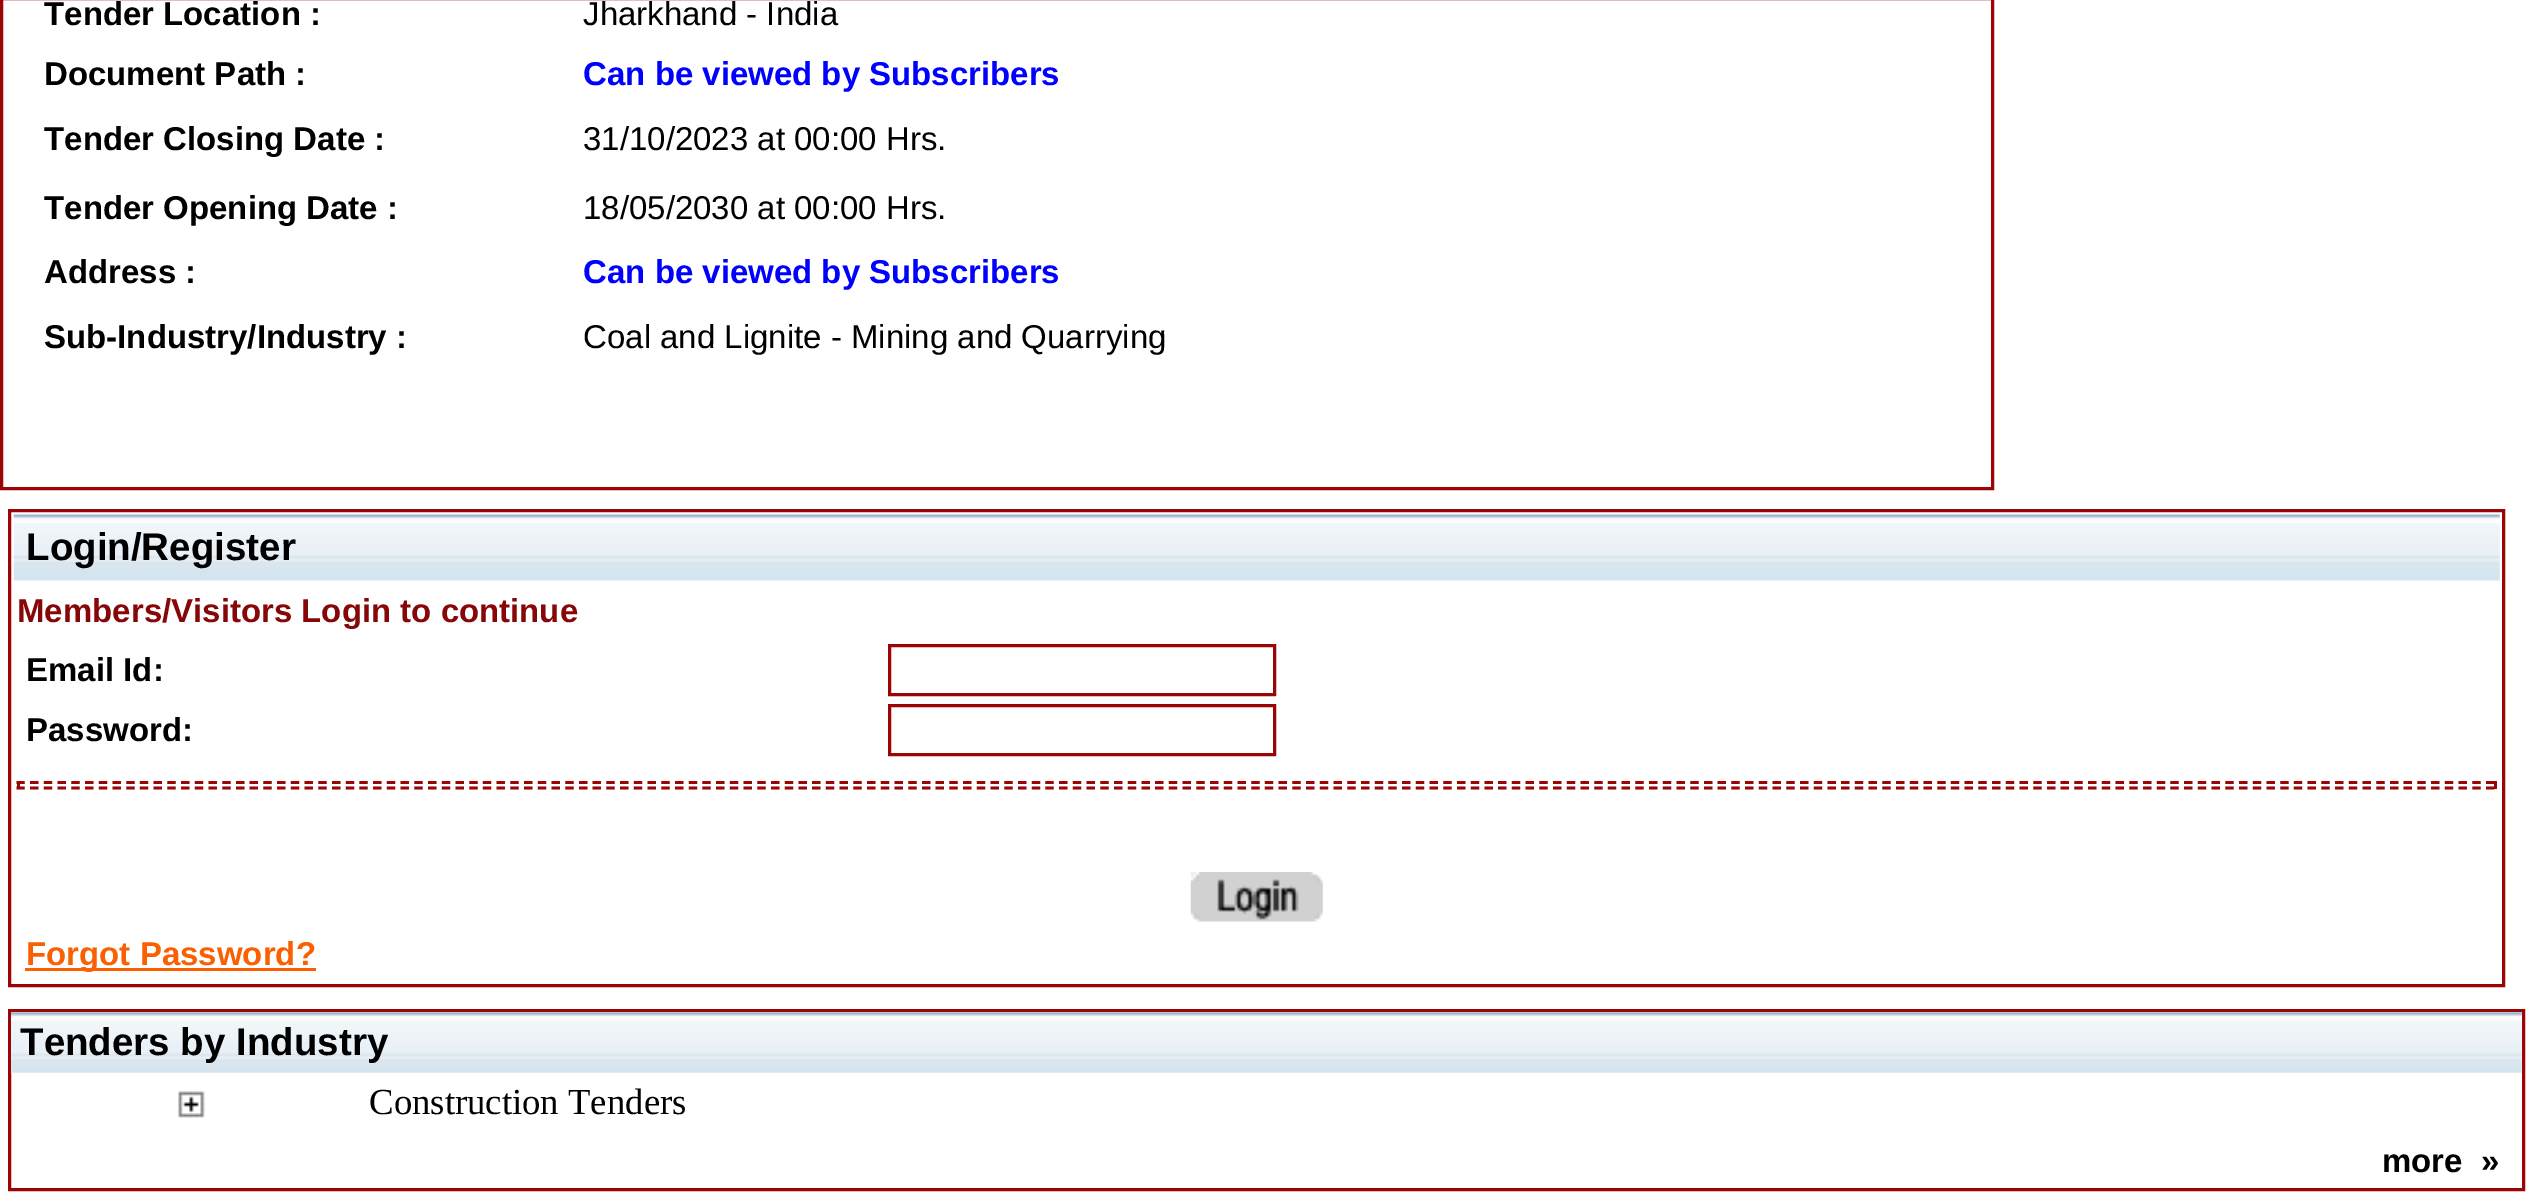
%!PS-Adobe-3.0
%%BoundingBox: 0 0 2531 1192
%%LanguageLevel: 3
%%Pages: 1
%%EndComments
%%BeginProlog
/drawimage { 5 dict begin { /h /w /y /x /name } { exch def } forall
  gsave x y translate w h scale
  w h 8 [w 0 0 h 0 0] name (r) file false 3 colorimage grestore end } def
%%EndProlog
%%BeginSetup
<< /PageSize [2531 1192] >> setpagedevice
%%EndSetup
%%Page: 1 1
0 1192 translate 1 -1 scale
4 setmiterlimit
1 setgray
0 0 2531 1192 rectfill
0.608 0.02 0.02 setrgbcolor
3 setlinewidth
1.5 -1.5 1991 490 rectstroke
9.5 510.5 2494 475 rectstroke
(images/1.raw) 13 514 2487 67 drawimage
889.5 645.5 385 49 rectstroke
889.5 705.5 385 49 rectstroke
2.8 setlinewidth
[8.25 5.47] 0 setdash
newpath 16.5 782.5 moveto 2497 782.5 lineto stroke
2494 781 3 8 rectfill
newpath 16.5 788 moveto 2497 788 lineto stroke
17 781 3 8 rectfill
(images/2.raw) 1190 872 133 50 drawimage
0.98 0.373 0.004 setrgbcolor
25 968 291 3 rectfill
0.608 0.02 0.02 setrgbcolor
3 setlinewidth
[] 0 setdash
9.5 1010.5 2514 179 rectstroke
(images/3.raw) 11 1012 2511 61 drawimage
(images/4.raw) 178 1091 27 27 drawimage
/LiberationSans-Bold [33 0 0 -33 0 0] selectfont
0 setgray
44 25 moveto (Tender Location :) show
/LiberationSans-Regular [33 0 0 -33 0 0] selectfont
583 25 moveto (Jharkhand - India) show
/LiberationSans-Bold [33 0 0 -33 0 0] selectfont
44 85 moveto (Document Path :) show
0 0 1 setrgbcolor
583 85 moveto (Can be viewed by Subscribers) show
0 setgray
44 150 moveto (Tender Closing Date :) show
/LiberationSans-Regular [33 0 0 -33 0 0] selectfont
583 150 moveto (31/10/2023 at 00:00 Hrs.) show
/LiberationSans-Bold [33 0 0 -33 0 0] selectfont
44 219 moveto (Tender Opening Date :) show
/LiberationSans-Regular [33 0 0 -33 0 0] selectfont
583 219 moveto (18/05/2030 at 00:00 Hrs.) show
/LiberationSans-Bold [33 0 0 -33 0 0] selectfont
44 283 moveto (Address :) show
0 0 1 setrgbcolor
583 283 moveto (Can be viewed by Subscribers) show
0 setgray
44 348 moveto (Sub-Industry/Industry :) show
/LiberationSans-Regular [33 0 0 -33 0 0] selectfont
583 348 moveto (Coal and Lignite - Mining and Quarrying) show
/LiberationSans-Bold [38.5 0 0 -38.5 0 0] selectfont
26 560 moveto (Login/Register) show
/LiberationSans-Bold [33 0 0 -33 0 0] selectfont
0.529 0.024 0.027 setrgbcolor
17 622 moveto (Members/Visitors Login to continue) show
0 setgray
26 681 moveto (Email Id:) show
26 741 moveto (Password:) show
0.98 0.373 0.004 setrgbcolor
26 965 moveto (Forgot Password?) show
/LiberationSans-Bold [38.5 0 0 -38.5 0 0] selectfont
0 setgray
20 1055 moveto (Tenders by Industry) show
/LiberationSerif-Regular [36.75 0 0 -36.75 0 0] selectfont
369 1114 moveto (Construction Tenders) show
/LiberationSans-Bold [33 0 0 -33 0 0] selectfont
2382 1172 moveto (more) show
2481 1172 moveto (») show
showpage
%%EOF
